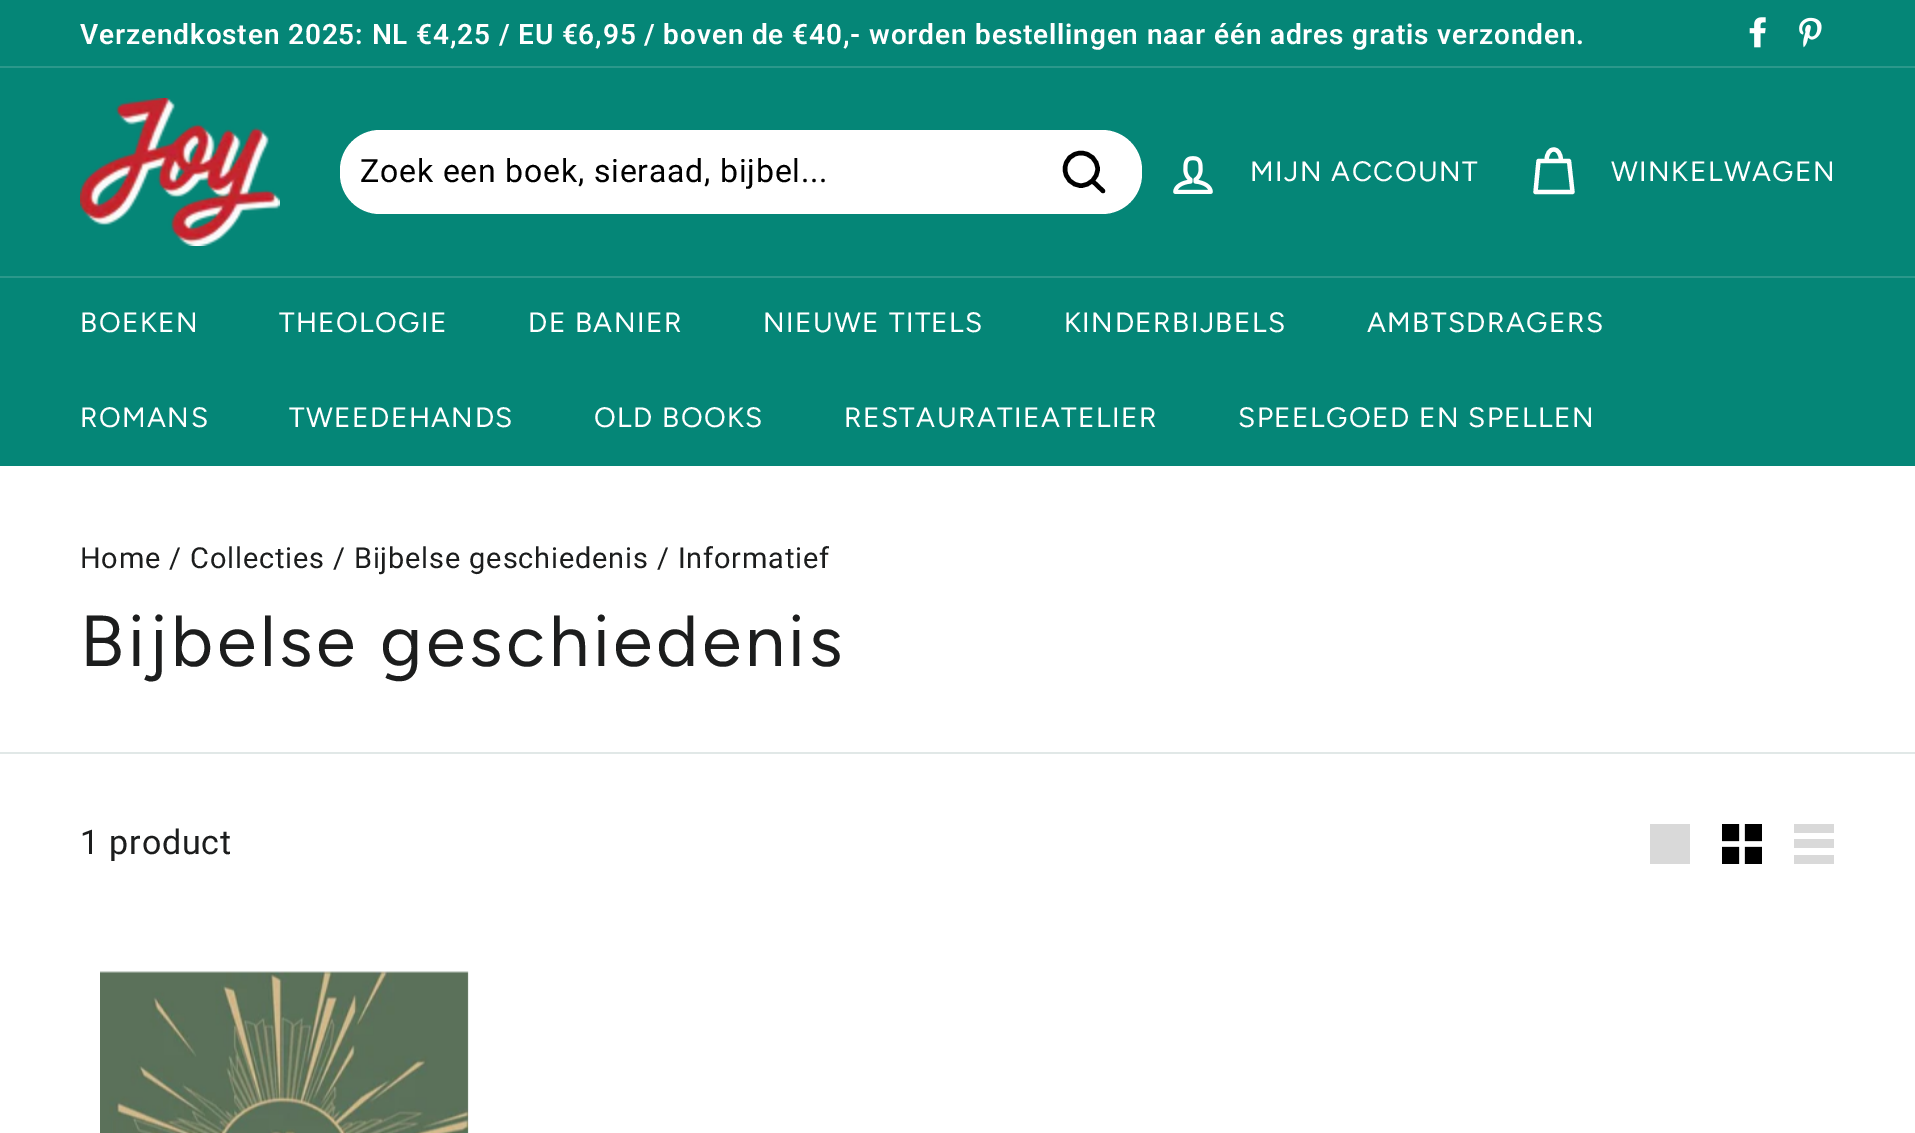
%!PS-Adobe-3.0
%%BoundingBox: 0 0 1915 1133
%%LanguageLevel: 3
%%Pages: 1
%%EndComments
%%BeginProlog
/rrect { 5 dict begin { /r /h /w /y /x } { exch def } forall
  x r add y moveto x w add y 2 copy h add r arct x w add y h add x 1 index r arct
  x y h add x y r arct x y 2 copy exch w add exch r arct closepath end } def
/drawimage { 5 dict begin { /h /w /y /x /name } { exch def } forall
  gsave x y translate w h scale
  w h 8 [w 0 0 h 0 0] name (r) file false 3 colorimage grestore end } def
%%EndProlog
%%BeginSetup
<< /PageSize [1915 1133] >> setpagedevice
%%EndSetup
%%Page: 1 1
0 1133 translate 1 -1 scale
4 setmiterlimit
1 setgray
0 0 1915 1133 rectfill
0.02 0.525 0.467 setrgbcolor
0 0 1915 66 rectfill
(images/1.raw) 1749 17 17 31 drawimage
(images/2.raw) 1799 17 23 31 drawimage
0.169 0.596 0.545 setrgbcolor
0 66 1915 2 rectfill
0.02 0.525 0.467 setrgbcolor
0 68 1915 208 rectfill
(images/3.raw) 80 98 200 148 drawimage
1 setgray
340 130 802 84 40 rrect fill
0 setgray
4.4 setlinewidth
1 setlinecap
1 setlinejoin
newpath 1097.5 169 moveto 1097.5 178 1090 185.5 1081 185.5 curveto 1072 185.5 1065 178 1065 169 curveto 1065 160 1072 153 1081 153 curveto 1090 153 1097.5 160 1097.5 169 curveto closepath 1103 191 moveto 1092.5 181 lineto stroke
(images/4.raw) 1173 156 40 38 drawimage
1 setgray
4.2 setlinewidth
newpath 1546.5 161 moveto 1546.5 145.5 1561 145.5 1561 161 curveto 1538.5 161 moveto 1569 161 lineto 1572.5 192 lineto 1535.5 192 lineto closepath stroke
0.169 0.596 0.545 setrgbcolor
0 276 1915 2 rectfill
0.02 0.525 0.467 setrgbcolor
0 278 1915 188 rectfill
0.882 0.91 0.906 setrgbcolor
0 752 1915 2 rectfill
0.851 setgray
1650 824 40 40 rectfill
(images/5.raw) 1722 824 40 40 drawimage
newpath 1794 824 moveto 1834 824 lineto 1834 833 lineto 1794 833 lineto closepath 1794 839 moveto 1834 839 lineto 1834 848 lineto 1794 848 lineto closepath 1794 855 moveto 1834 855 lineto 1834 864 lineto 1794 864 lineto closepath fill
(images/6.raw) 100 971 369 162 drawimage
/Roboto-SemiBold [28 0 0 -28 0 0] selectfont
1 setgray
80 44 moveto 0.85 0 (Verzendkosten 2025: NL €4,25 / EU €6,95 / boven de €40,- worden bestellingen naar één adres gratis verzonden.) ashow
/Roboto-Regular [32 0 0 -32 0 0] selectfont
0 setgray
360 182 moveto 0.8 0 (Zoek een boek, sieraad, bijbel...) ashow
/Figtree-Regular [28 0 0 -28 0 0] selectfont
1 setgray
1250 181 moveto 1.4 0 (MIJN ACCOUNT) ashow
1611 181 moveto 1.4 0 (WINKELWAGEN) ashow
80 332 moveto 1.4 0 (BOEKEN) ashow
279 332 moveto 1.4 0 (THEOLOGIE) ashow
528 332 moveto 1.4 0 (DE BANIER) ashow
763 332 moveto 1.4 0 (NIEUWE TITELS) ashow
1064 332 moveto 1.4 0 (KINDERBIJBELS) ashow
1367 332 moveto 1.4 0 (AMBTSDRAGERS) ashow
80 427 moveto 1.4 0 (ROMANS) ashow
289 427 moveto 1.4 0 (TWEEDEHANDS) ashow
594 427 moveto 1.4 0 (OLD BOOKS) ashow
844 427 moveto 1.4 0 (RESTAURATIEATELIER) ashow
1238 427 moveto 1.4 0 (SPEELGOED EN SPELLEN) ashow
/Roboto-Regular [28.9 0 0 -28.9 0 0] selectfont
0.11 0.114 0.114 setrgbcolor
80 568 moveto 0.85 0 (Home / Collecties / Bijbelse geschiedenis / Informatief) ashow
/Figtree-Regular [72 0 0 -72 0 0] selectfont
80 666 moveto 3.6 0 (Bijbelse geschiedenis) ashow
/Roboto-Regular [34 0 0 -34 0 0] selectfont
80 854 moveto 0.85 0 (1 product) ashow
showpage
%%EOF
